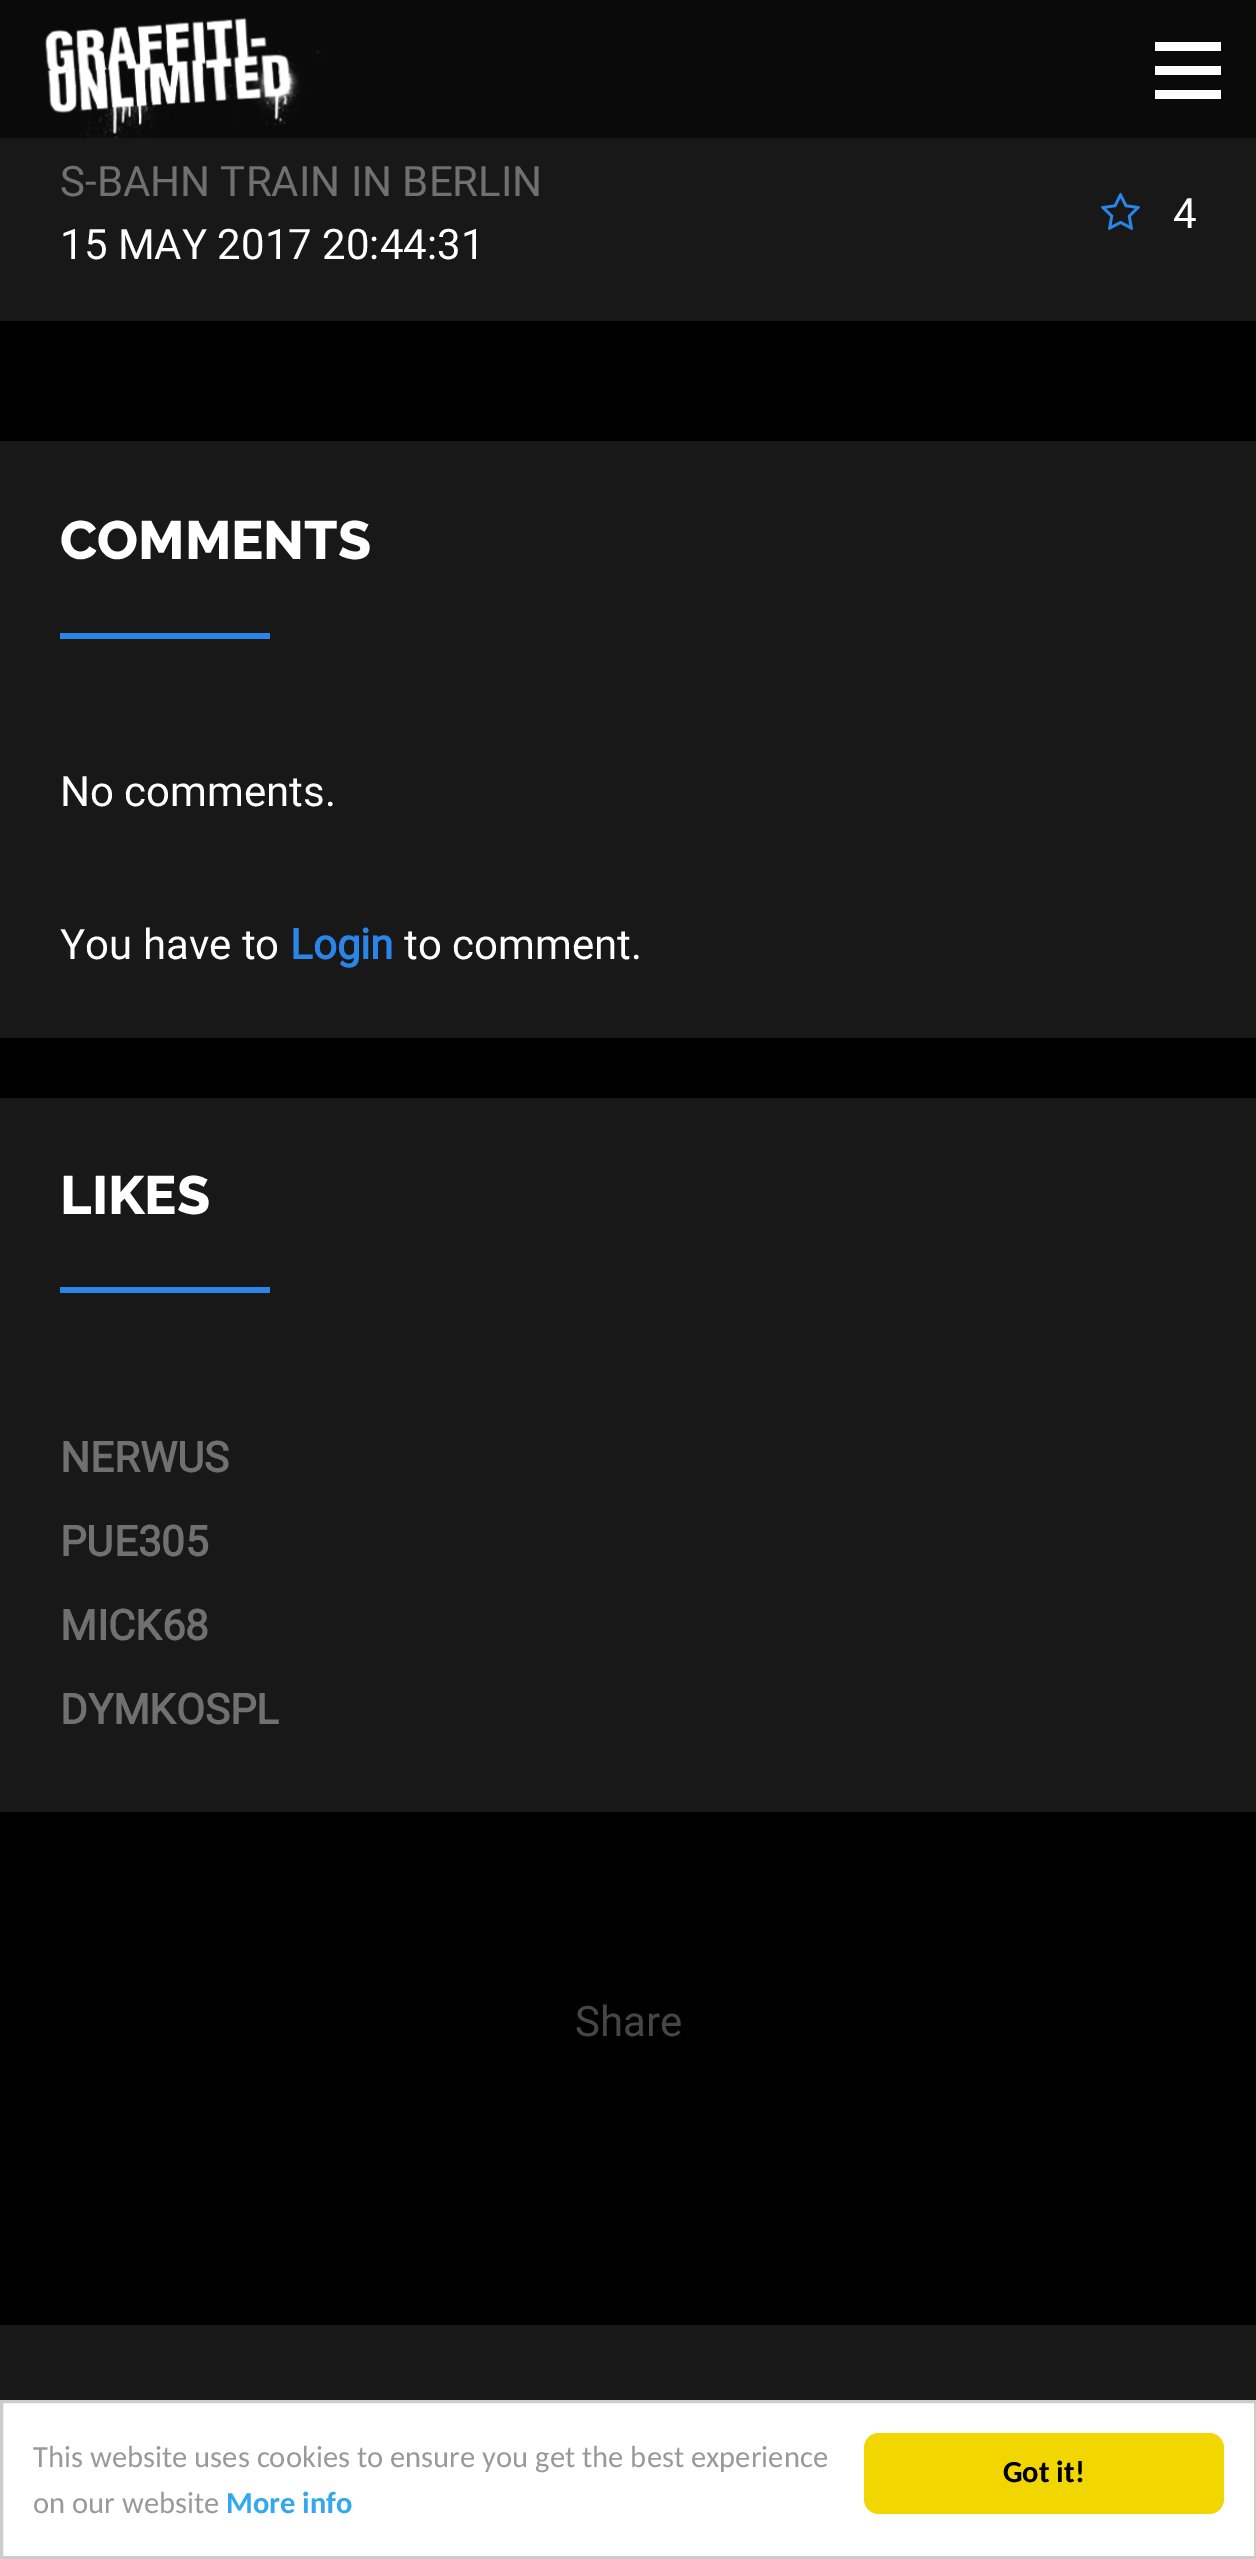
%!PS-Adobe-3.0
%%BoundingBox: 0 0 1256 2559
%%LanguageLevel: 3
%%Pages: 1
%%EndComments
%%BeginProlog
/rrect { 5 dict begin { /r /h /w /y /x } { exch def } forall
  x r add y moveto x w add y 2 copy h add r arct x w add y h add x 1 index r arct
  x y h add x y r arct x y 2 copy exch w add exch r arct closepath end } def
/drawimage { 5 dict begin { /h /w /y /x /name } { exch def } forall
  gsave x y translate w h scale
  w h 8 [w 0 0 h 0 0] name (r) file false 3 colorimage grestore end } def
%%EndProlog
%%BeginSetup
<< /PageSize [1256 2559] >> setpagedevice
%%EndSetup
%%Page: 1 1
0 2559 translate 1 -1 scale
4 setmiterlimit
0 setgray
0 0 1256 2559 rectfill
0.039 setgray
0 0 1256 138 rectfill
(images/1.raw) 45 17 282 121 drawimage
1 setgray
1155 66 66 9 rectfill
1155 42 66 9 rectfill
1155 90 66 9 rectfill
0.094 setgray
0 138 1256 183 rectfill
(images/2.raw) 1101 192 39 38 drawimage
0 441 1256 597 rectfill
0.165 0.522 0.91 setrgbcolor
60 633 210 6 rectfill
0.094 setgray
0 1098 1256 714 rectfill
0.165 0.522 0.91 setrgbcolor
60 1287 210 6 rectfill
0.094 setgray
0 2325 1256 75 rectfill
1 setgray
newpath 1.5 2401.5 moveto 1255.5 2401.5 lineto 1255.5 2557.5 lineto 1.5 2557.5 lineto closepath gsave fill grestore
0.8 setgray
3 setlinewidth
stroke
0.945 0.839 0 setrgbcolor
864 2433 360 81 15 rrect fill
/Roboto-Regular [42 0 0 -42 0 0] selectfont
0.439 setgray
60 196 moveto (S-BAHN TRAIN IN BERLIN) show
1 setgray
60 259 moveto (15 MAY 2017 20:44:31) show
1173 228 moveto (4) show
/Raleway-ExtraBold [54 0 0 -54 0 0] selectfont
60 559 moveto (COMMENTS) show
/Roboto-Regular [42 0 0 -42 0 0] selectfont
60 806 moveto (No comments.) show
60 959 moveto (You have to) show
/Roboto-Bold [42 0 0 -42 0 0] selectfont
0.165 0.522 0.91 setrgbcolor
290 959 moveto (Login) show
/Roboto-Regular [42 0 0 -42 0 0] selectfont
1 setgray
404 959 moveto (to comment.) show
/Raleway-ExtraBold [54 0 0 -54 0 0] selectfont
60 1214 moveto (LIKES) show
/Roboto-Bold [42 0 0 -42 0 0] selectfont
0.439 setgray
60 1472 moveto (NERWUS) show
60 1556 moveto (PUE305) show
60 1640 moveto (MICK68) show
60 1724 moveto (DYMKOSPL) show
/Roboto-Regular [42 0 0 -42 0 0] selectfont
0.275 setgray
575 2036 moveto (Share) show
/Carlito-Regular [30.6 0 0 -30.6 0 0] selectfont
0.6 setgray
33 2467 moveto (This website uses cookies to ensure you get the best experience) show
33 2513 moveto (on our website) show
/Carlito-Bold [30.6 0 0 -30.6 0 0] selectfont
0.192 0.659 0.941 setrgbcolor
226 2513 moveto (More info) show
0 setgray
1003 2482 moveto (Got it!) show
showpage
%%EOF
